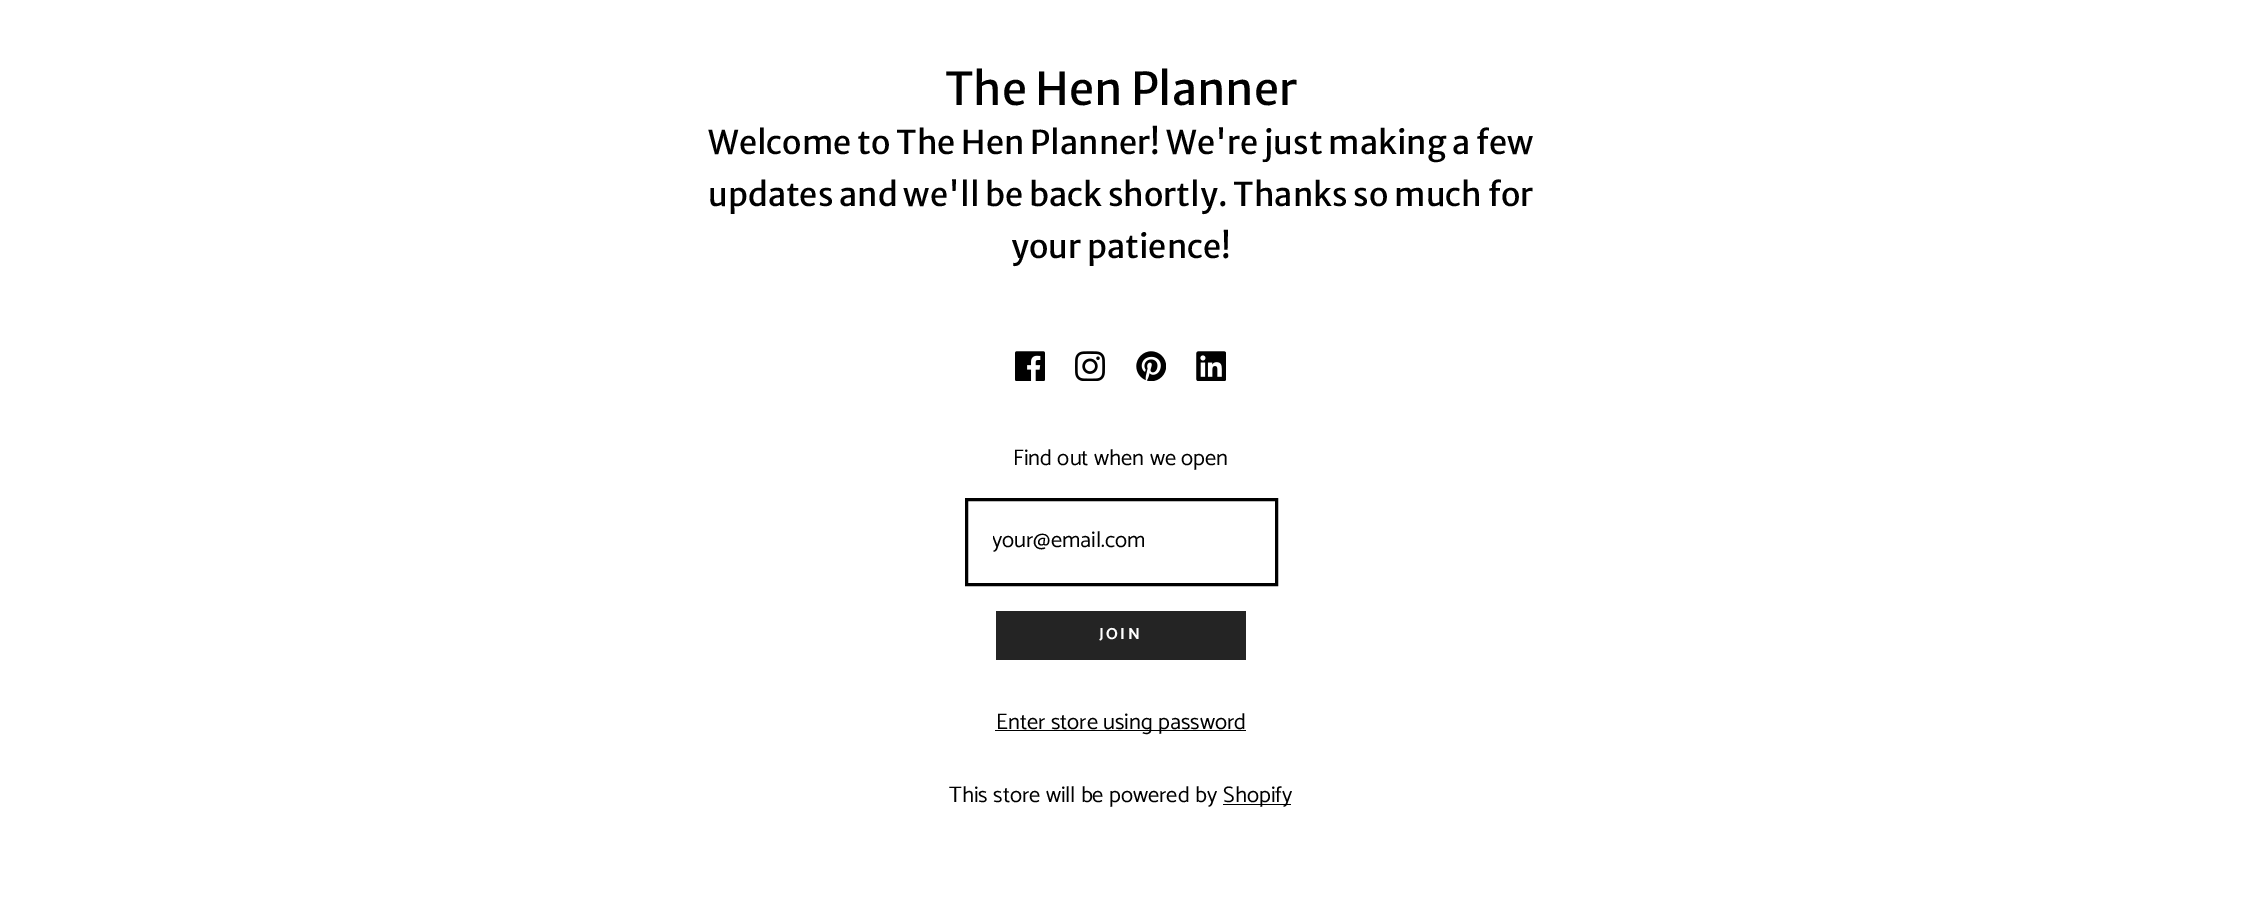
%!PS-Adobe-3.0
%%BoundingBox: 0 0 2241 905
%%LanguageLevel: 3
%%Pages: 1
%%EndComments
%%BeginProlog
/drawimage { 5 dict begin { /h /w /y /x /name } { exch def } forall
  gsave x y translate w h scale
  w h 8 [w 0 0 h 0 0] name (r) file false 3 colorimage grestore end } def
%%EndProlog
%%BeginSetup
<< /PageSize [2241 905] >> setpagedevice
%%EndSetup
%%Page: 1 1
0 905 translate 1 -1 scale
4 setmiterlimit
1 setgray
0 0 2241 905 rectfill
(images/1.raw) 1015 351 30 30 drawimage
(images/2.raw) 1075 351 30 30 drawimage
(images/3.raw) 1136 351 30 30 drawimage
(images/4.raw) 1196 351 30 30 drawimage
0 setgray
3 setlinewidth
966.5 499.5 310 85 rectstroke
0.141 setgray
996 611 250 49 rectfill
0 setgray
995 730 251 1 rectfill
1223 804 68 1 rectfill
/MerriweatherSans-Regular [45 0 0 -45 0 0] selectfont
945 105 moveto (The Hen Planner) show
/MerriweatherSans-Regular [32.5 0 0 -32.5 0 0] selectfont
708 154 moveto (Welcome to The Hen Planner! We're just making a few) show
708 206 moveto (updates and we'll be back shortly. Thanks so much for) show
1011 258 moveto (your patience!) show
/Catamaran-Regular [22.5 0 0 -22.5 0 0] selectfont
1013 465 moveto (Find out when we open) show
gsave
993 523 257 37 rectclip
992 547 moveto (your@email.com) show
grestore
/Catamaran-Bold [16 0 0 -16 0 0] selectfont
1 setgray
1099 639 moveto 2.5 0 (JOIN) ashow
/Catamaran-Regular [22.5 0 0 -22.5 0 0] selectfont
0 setgray
996 729 moveto (Enter store using password) show
949 802 moveto (This store will be powered by) show
1223 802 moveto (Shopify) show
showpage
%%EOF
